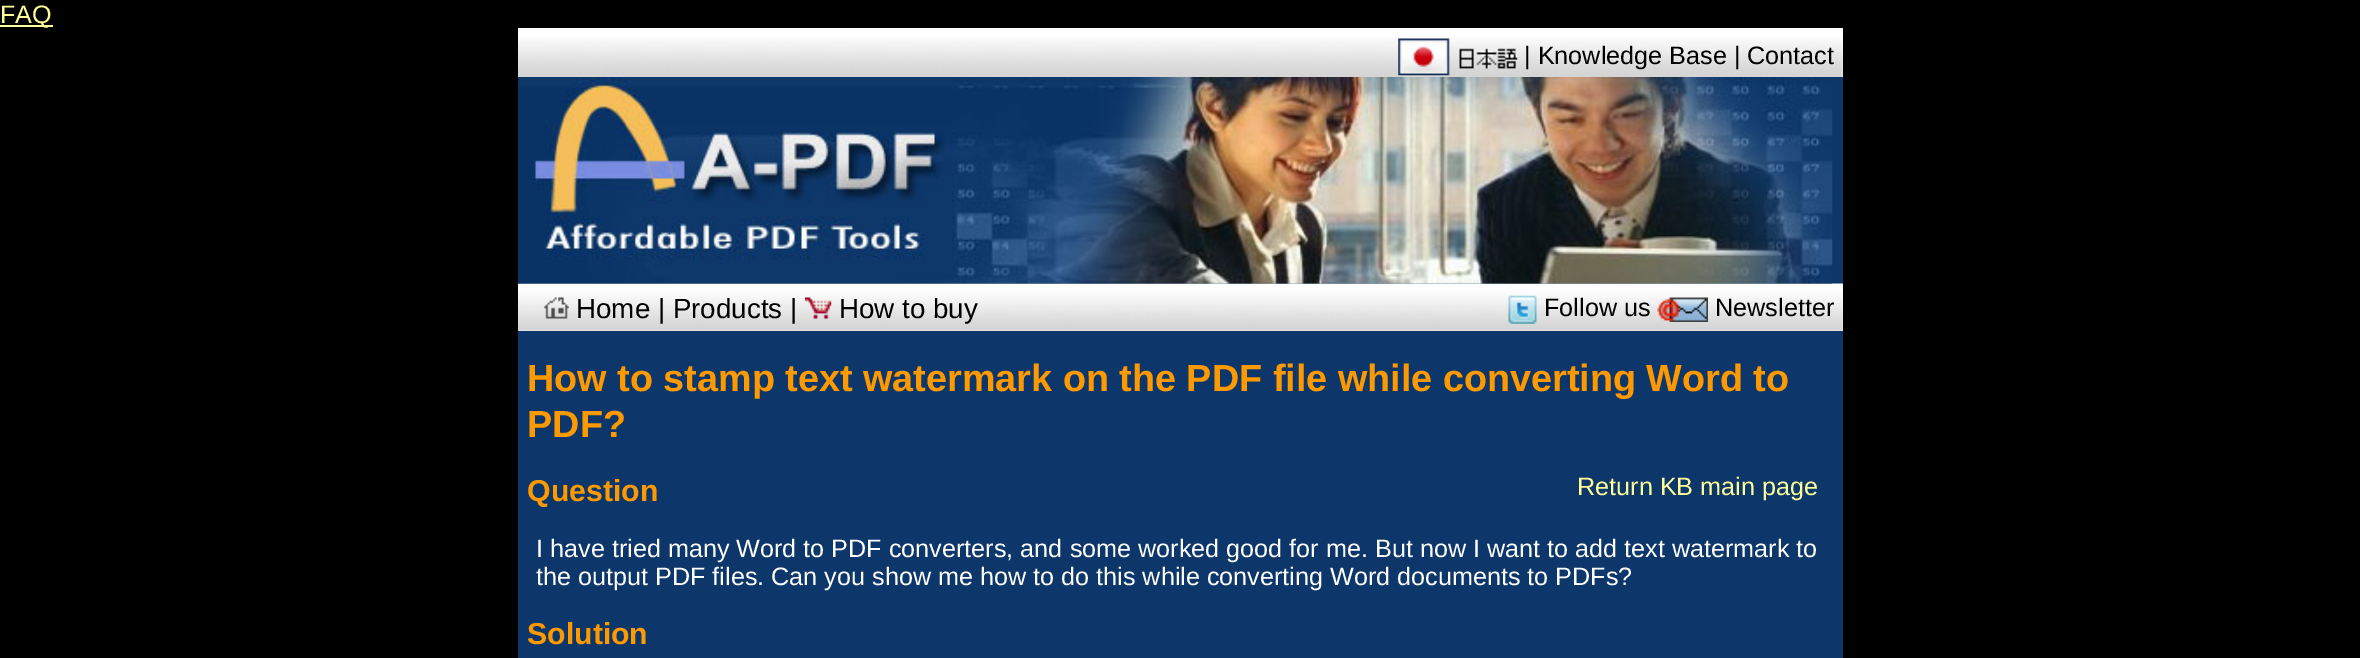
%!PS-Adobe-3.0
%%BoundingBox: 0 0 2360 658
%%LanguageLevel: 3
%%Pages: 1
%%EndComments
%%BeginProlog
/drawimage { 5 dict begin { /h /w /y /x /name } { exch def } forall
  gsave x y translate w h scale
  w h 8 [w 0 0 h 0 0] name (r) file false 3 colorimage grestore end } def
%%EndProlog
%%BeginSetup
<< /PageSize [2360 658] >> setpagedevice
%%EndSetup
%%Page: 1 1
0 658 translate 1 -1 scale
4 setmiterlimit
0 setgray
0 0 2360 658 rectfill
1 1 0.6 setrgbcolor
0 25 53 2 rectfill
0.051 0.216 0.416 setrgbcolor
518 77 1325 581 rectfill
1 setgray
518 28 1325 49 rectfill
(images/1.raw) 518 37 1325 40 drawimage
(images/2.raw) 1398 38 120 38 drawimage
518 284 1325 47 rectfill
(images/4.raw) 518 283 1325 48 drawimage
(images/3.raw) 518 77 1315 207 drawimage
(images/5.raw) 544 297 25 22 drawimage
(images/6.raw) 805 297 27 22 drawimage
(images/7.raw) 1508 295 29 29 drawimage
(images/8.raw) 1657 297 51 25 drawimage
/LiberationSans-Regular [25.2 0 0 -25.2 0 0] selectfont
1 1 0.6 setrgbcolor
0 23 moveto (FAQ) show
0 setgray
1524 64 moveto (| Knowledge Base | Contact) show
/LiberationSans-Regular [27.75 0 0 -27.75 0 0] selectfont
576 318 moveto (Home | Products |) show
839 318 moveto (How to buy) show
/LiberationSans-Regular [25.2 0 0 -25.2 0 0] selectfont
1544 316 moveto (Follow us) show
1715 316 moveto (Newsletter) show
/LiberationSans-Bold [37.8 0 0 -37.8 0 0] selectfont
1 0.6 0 setrgbcolor
527 391 moveto (How to stamp text watermark on the PDF file while converting Word to) show
527 437 moveto (PDF?) show
/LiberationSans-Bold [30.25 0 0 -30.25 0 0] selectfont
527 501 moveto (Question) show
/LiberationSans-Regular [25.2 0 0 -25.2 0 0] selectfont
1 1 0.6 setrgbcolor
1577 495 moveto (Return KB main page) show
1 setgray
536 557 moveto (I have tried many Word to PDF converters, and some worked good for me. But now I want to add text watermark to) show
536 585 moveto (the output PDF files. Can you show me how to do this while converting Word documents to PDFs?) show
/LiberationSans-Bold [30.25 0 0 -30.25 0 0] selectfont
1 0.6 0 setrgbcolor
527 644 moveto (Solution) show
showpage
%%EOF
